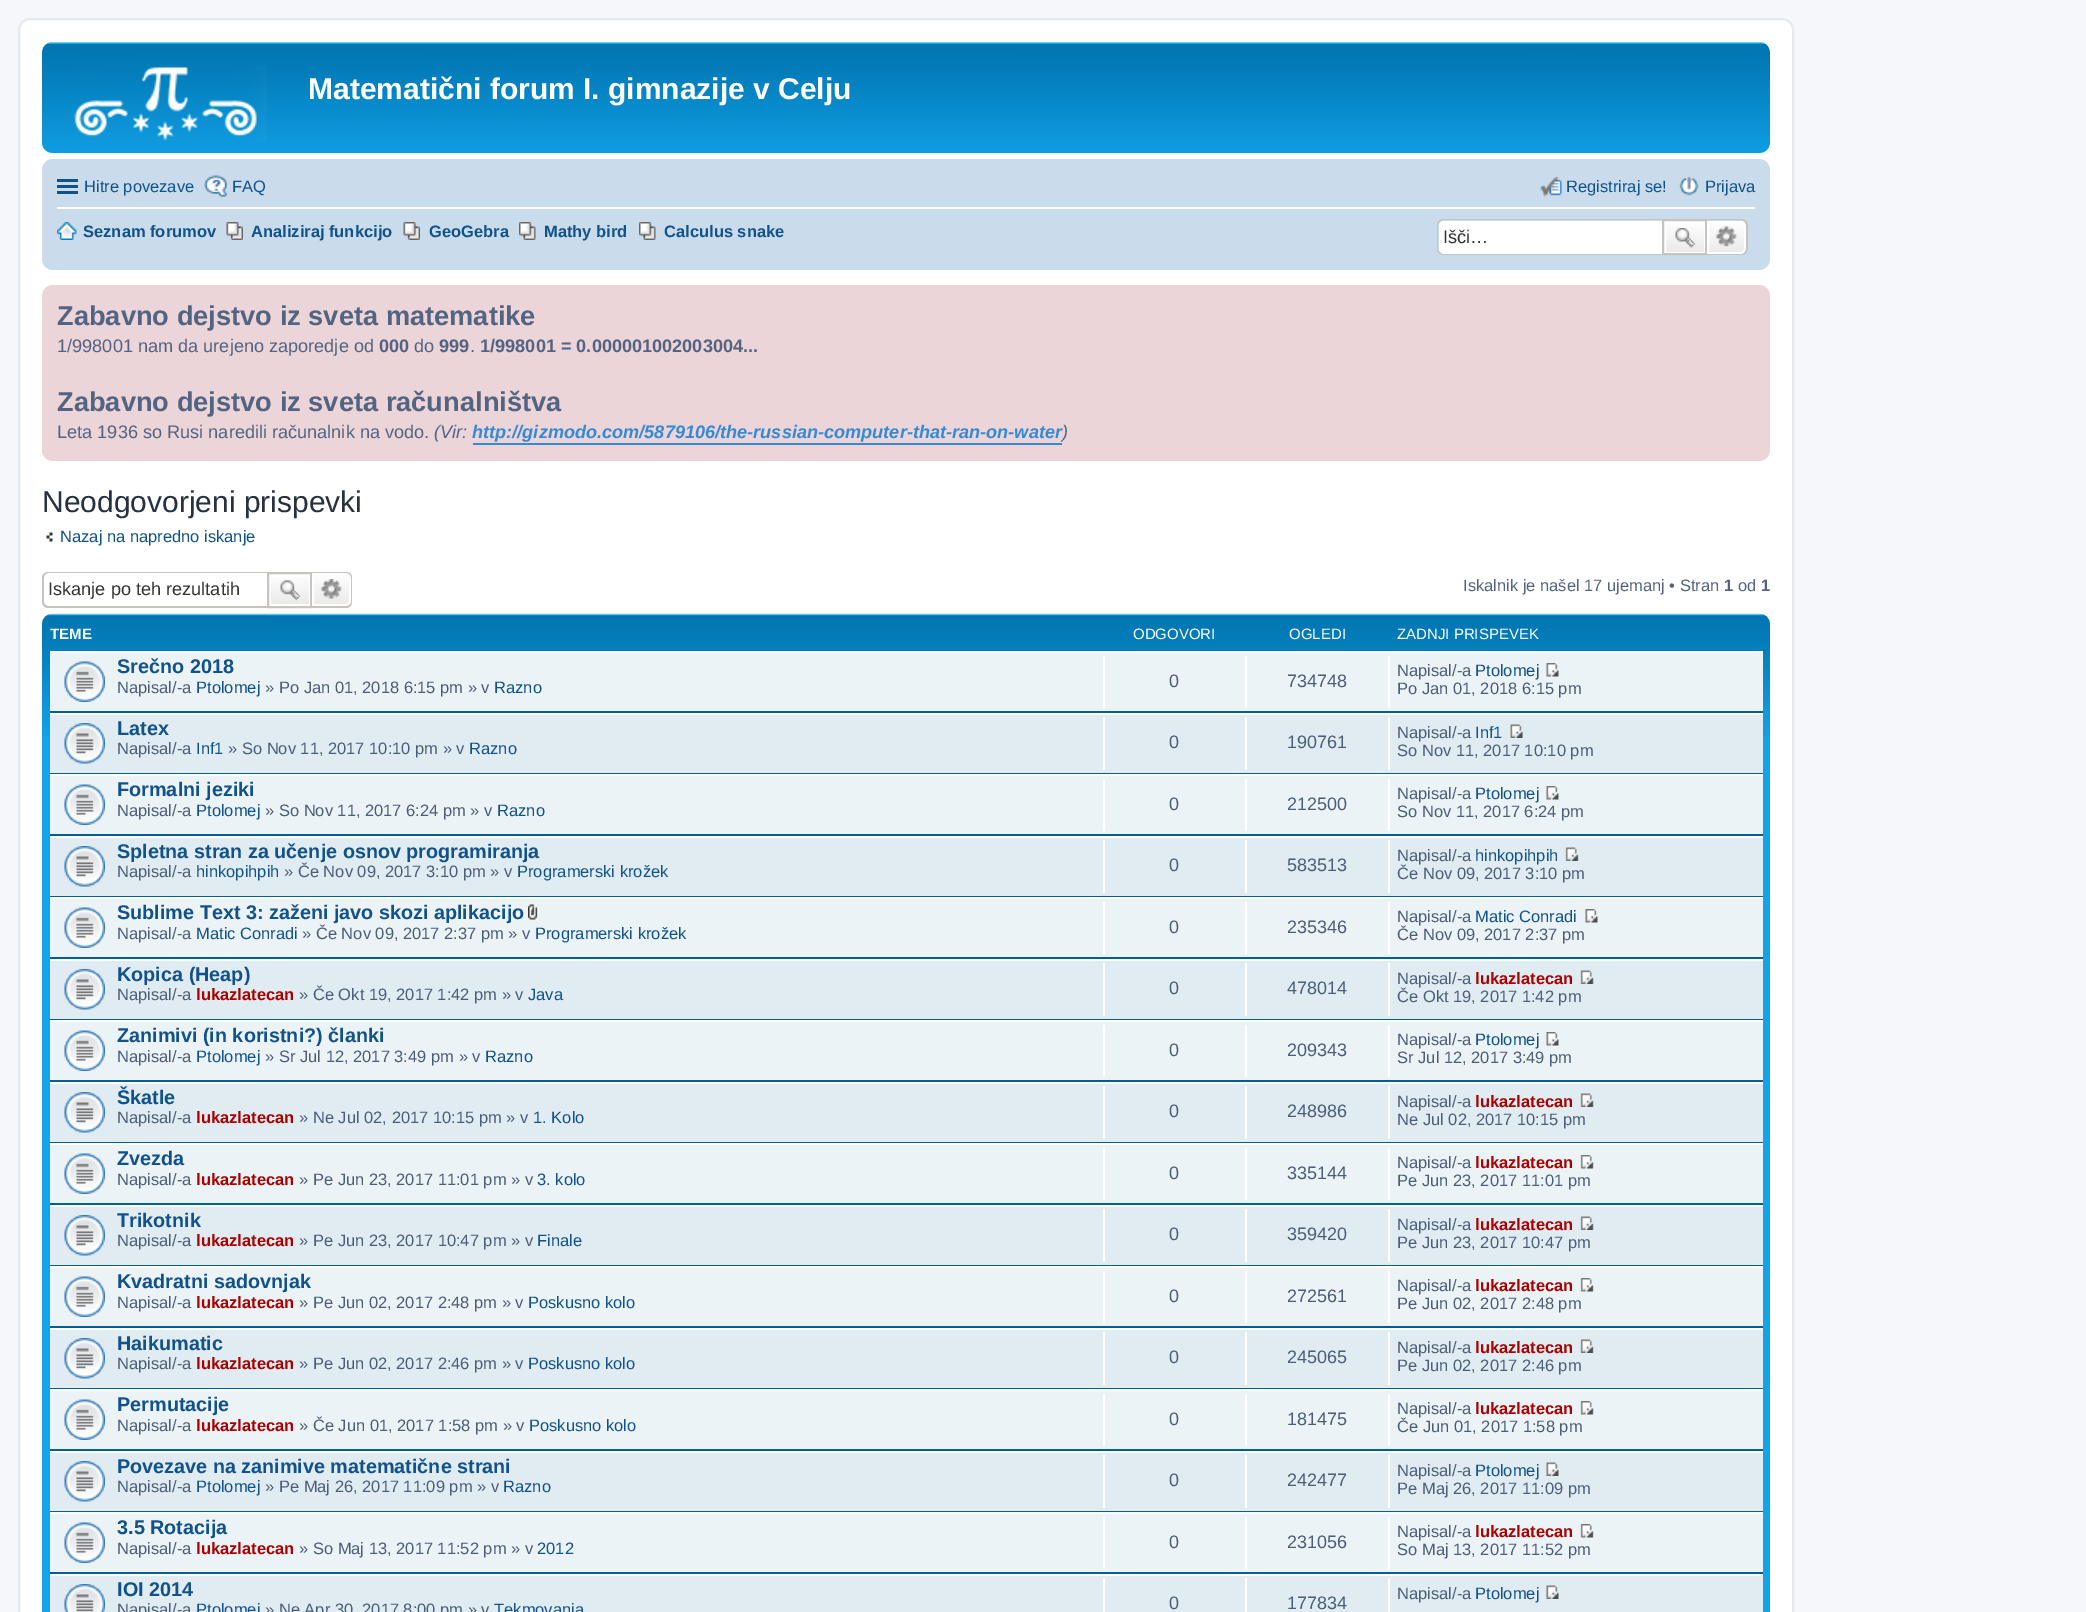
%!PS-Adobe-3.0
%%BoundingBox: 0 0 2086 1612
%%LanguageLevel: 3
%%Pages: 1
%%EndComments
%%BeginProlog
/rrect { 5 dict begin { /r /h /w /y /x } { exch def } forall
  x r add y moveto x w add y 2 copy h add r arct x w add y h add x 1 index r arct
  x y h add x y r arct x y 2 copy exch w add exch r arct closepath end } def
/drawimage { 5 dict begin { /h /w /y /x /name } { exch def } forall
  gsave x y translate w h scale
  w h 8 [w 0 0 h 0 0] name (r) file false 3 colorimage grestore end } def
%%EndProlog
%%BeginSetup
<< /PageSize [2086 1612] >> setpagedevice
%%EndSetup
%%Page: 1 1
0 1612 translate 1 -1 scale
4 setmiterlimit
0.961 0.969 0.98 setrgbcolor
0 0 2086 1612 rectfill
1 setgray
19 19 1774 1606 11 rrect gsave fill grestore
0.902 0.914 0.929 setrgbcolor
2 setlinewidth
stroke
0.071 0.639 0.922 setrgbcolor
42 42 1728 111 11 rrect fill
(images/1.raw) 42 42 1728 111 drawimage
(images/2.raw) 74 65 193 77 drawimage
0.792 0.863 0.922 setrgbcolor
42 159 1728 111 11 rrect fill
0.063 0.322 0.537 setrgbcolor
57 179 21 3 rectfill
57 185 21 3 rectfill
57 191 21 3 rectfill
(images/3.raw) 204 175 24 22 drawimage
(images/4.raw) 1540 176 22 21 drawimage
(images/5.raw) 1679 176 20 20 drawimage
1 setgray
57 207 1698 2 rectfill
(images/6.raw) 57 222 20 18 drawimage
(images/7.raw) 226 222 17 18 drawimage
(images/8.raw) 403 222 17 18 drawimage
(images/9.raw) 519 222 17 18 drawimage
(images/9.raw) 639 222 17 18 drawimage
newpath 1444 221 moveto 1662 221 lineto 1662 254 lineto 1444 254 lineto 1441 254 1439 252 1439 249 curveto 1439 226 lineto 1439 223 1441 221 1444 221 curveto closepath fill
0.78 0.765 0.749 setrgbcolor
newpath 1443 219 moveto 1662 219 lineto 1662 255 lineto 1443 255 lineto 1440 255 1437 252 1437 249 curveto 1437 225 lineto 1437 222 1440 219 1443 219 curveto closepath 1443 220 moveto 1662 220 lineto 1662 254 lineto 1443 254 lineto 1441 254 1438 251 1438 249 curveto 1438 225 lineto 1438 223 1441 220 1443 220 curveto closepath eofill
gsave newpath 1666 223 moveto 1704 223 lineto 1704 252 lineto 1666 252 lineto closepath clip newpath
<< /ShadingType 2 /ColorSpace /DeviceRGB /Coords [1685 221 1685 254] /Extend [true true] /Function << /FunctionType 2 /Domain [0 1] /C0 [1 1 1] /C1 [0.914 0.914 0.914] /N 1 >> >> shfill grestore
1 setgray
1665 222 40 31 rectstroke
0.78 0.765 0.749 setrgbcolor
1663 220 43 34 rectstroke
(images/10.raw) 1675 228 21 20 drawimage
gsave newpath 1708 222 moveto 1741 222 lineto 1743 222 1745 224 1745 226 curveto 1745 249 lineto 1745 251 1743 253 1741 253 curveto 1708 253 lineto closepath clip newpath
<< /ShadingType 2 /ColorSpace /DeviceRGB /Coords [1727 221 1727 254] /Extend [true true] /Function << /FunctionType 2 /Domain [0 1] /C0 [1 1 1] /C1 [0.914 0.914 0.914] /N 1 >> >> shfill grestore
1 setgray
newpath 1708 222 moveto 1741 222 lineto 1743 222 1745 224 1745 226 curveto 1745 249 lineto 1745 251 1743 253 1741 253 curveto 1708 253 lineto closepath stroke
0.78 0.765 0.749 setrgbcolor
newpath 1707 219 moveto 1742 219 lineto 1745 219 1748 222 1748 225 curveto 1748 249 lineto 1748 252 1745 255 1742 255 curveto 1707 255 lineto closepath 1707 220 moveto 1742 220 lineto 1744 220 1746 223 1746 225 curveto 1746 249 lineto 1746 251 1744 254 1742 254 curveto 1707 254 lineto closepath eofill
(images/11.raw) 1715 226 23 21 drawimage
0.925 0.835 0.847 setrgbcolor
42 285 1728 176 11 rrect fill
0.212 0.541 0.824 setrgbcolor
473 443 589 2 rectfill
(images/12.raw) 46 532 7 10 drawimage
0.78 0.765 0.749 setrgbcolor
newpath 48 572 moveto 267 572 lineto 267 608 lineto 48 608 lineto 45 608 42 605 42 602 curveto 42 578 lineto 42 574 45 572 48 572 curveto closepath 48 573 moveto 267 573 lineto 267 606 lineto 48 606 lineto 46 606 44 604 44 602 curveto 44 578 lineto 44 575 46 573 48 573 curveto closepath eofill
gsave newpath 271 577 moveto 309 577 lineto 309 604 lineto 271 604 lineto closepath clip newpath
<< /ShadingType 2 /ColorSpace /DeviceRGB /Coords [290 573 290 606] /Extend [true true] /Function << /FunctionType 2 /Domain [0 1] /C0 [1 1 1] /C1 [0.914 0.914 0.914] /N 1 >> >> shfill grestore
268 573 43 34 rectstroke
(images/13.raw) 280 580 21 21 drawimage
gsave newpath 313 574 moveto 346 574 lineto 348 574 350 576 350 578 curveto 350 601 lineto 350 603 348 605 346 605 curveto 313 605 lineto closepath clip newpath
<< /ShadingType 2 /ColorSpace /DeviceRGB /Coords [332 573 332 606] /Extend [true true] /Function << /FunctionType 2 /Domain [0 1] /C0 [1 1 1] /C1 [0.914 0.914 0.914] /N 1 >> >> shfill grestore
1 setgray
newpath 313 574 moveto 346 574 lineto 348 574 350 576 350 578 curveto 350 601 lineto 350 603 348 605 346 605 curveto 313 605 lineto closepath stroke
0.78 0.765 0.749 setrgbcolor
newpath 312 572 moveto 346 572 lineto 350 572 352 574 352 578 curveto 352 602 lineto 352 605 350 608 346 608 curveto 312 608 lineto closepath 312 573 moveto 346 573 lineto 349 573 351 575 351 578 curveto 351 602 lineto 351 604 349 606 346 606 curveto 312 606 lineto closepath eofill
(images/14.raw) 320 579 23 20 drawimage
0.071 0.639 0.922 setrgbcolor
42 614 1728 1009 11 rrect fill
(images/15.raw) 42 613 1728 123 drawimage
0.925 0.953 0.969 setrgbcolor
50 653 1713 58 rectfill
1 setgray
50 651 1713 2 rectfill
0 0.376 0.561 setrgbcolor
50 711 1713 2 rectfill
(images/16.raw) 64 661 41 41 drawimage
1 setgray
1103 656 2 52 rectfill
1245 656 2 52 rectfill
1388 656 2 52 rectfill
(images/17.raw) 1546 663 13 14 drawimage
0.882 0.922 0.949 setrgbcolor
50 715 1713 58 rectfill
1 setgray
50 713 1713 2 rectfill
0 0.376 0.561 setrgbcolor
50 773 1713 1 rectfill
(images/18.raw) 64 723 41 41 drawimage
1 setgray
1103 717 2 53 rectfill
1245 717 2 53 rectfill
1388 717 2 53 rectfill
(images/19.raw) 1510 724 13 14 drawimage
0.925 0.953 0.969 setrgbcolor
50 776 1713 58 rectfill
1 setgray
50 774 1713 2 rectfill
0 0.376 0.561 setrgbcolor
50 834 1713 2 rectfill
(images/16.raw) 64 784 41 41 drawimage
1 setgray
1103 779 2 52 rectfill
1245 779 2 52 rectfill
1388 779 2 52 rectfill
(images/17.raw) 1546 786 13 14 drawimage
0.882 0.922 0.949 setrgbcolor
50 838 1713 58 rectfill
1 setgray
50 836 1713 2 rectfill
0 0.376 0.561 setrgbcolor
50 896 1713 1 rectfill
(images/18.raw) 64 846 41 41 drawimage
1 setgray
1103 840 2 53 rectfill
1245 840 2 53 rectfill
1388 840 2 53 rectfill
(images/20.raw) 1565 847 14 14 drawimage
0.925 0.953 0.969 setrgbcolor
50 899 1713 58 rectfill
1 setgray
50 897 1713 2 rectfill
0 0.376 0.561 setrgbcolor
50 957 1713 2 rectfill
(images/16.raw) 64 907 41 41 drawimage
(images/21.raw) 528 904 11 16 drawimage
1 setgray
1103 902 2 52 rectfill
1245 902 2 52 rectfill
1388 902 2 52 rectfill
(images/17.raw) 1585 909 13 14 drawimage
0.882 0.922 0.949 setrgbcolor
50 961 1713 58 rectfill
1 setgray
50 959 1713 2 rectfill
0 0.376 0.561 setrgbcolor
50 1019 1713 1 rectfill
(images/18.raw) 64 969 41 41 drawimage
1 setgray
1103 963 2 53 rectfill
1245 963 2 53 rectfill
1388 963 2 53 rectfill
(images/20.raw) 1580 970 14 14 drawimage
0.925 0.953 0.969 setrgbcolor
50 1022 1713 58 rectfill
1 setgray
50 1020 1713 2 rectfill
0 0.376 0.561 setrgbcolor
50 1080 1713 2 rectfill
(images/16.raw) 64 1030 41 41 drawimage
1 setgray
1103 1025 2 52 rectfill
1245 1025 2 52 rectfill
1388 1025 2 52 rectfill
(images/17.raw) 1546 1032 13 14 drawimage
0.882 0.922 0.949 setrgbcolor
50 1084 1713 58 rectfill
1 setgray
50 1082 1713 2 rectfill
0 0.376 0.561 setrgbcolor
50 1142 1713 1 rectfill
(images/18.raw) 64 1092 41 41 drawimage
1 setgray
1103 1086 2 53 rectfill
1245 1086 2 53 rectfill
1388 1086 2 53 rectfill
(images/20.raw) 1580 1093 14 14 drawimage
0.925 0.953 0.969 setrgbcolor
50 1145 1713 58 rectfill
1 setgray
50 1143 1713 2 rectfill
0 0.376 0.561 setrgbcolor
50 1203 1713 2 rectfill
(images/16.raw) 64 1153 41 41 drawimage
1 setgray
1103 1148 2 52 rectfill
1245 1148 2 52 rectfill
1388 1148 2 52 rectfill
(images/22.raw) 1580 1155 14 14 drawimage
0.882 0.922 0.949 setrgbcolor
50 1207 1713 58 rectfill
1 setgray
50 1205 1713 2 rectfill
0 0.376 0.561 setrgbcolor
50 1265 1713 1 rectfill
(images/18.raw) 64 1215 41 41 drawimage
1 setgray
1103 1209 2 53 rectfill
1245 1209 2 53 rectfill
1388 1209 2 53 rectfill
(images/20.raw) 1580 1216 14 14 drawimage
0.925 0.953 0.969 setrgbcolor
50 1268 1713 58 rectfill
1 setgray
50 1266 1713 2 rectfill
0 0.376 0.561 setrgbcolor
50 1326 1713 2 rectfill
(images/16.raw) 64 1276 41 41 drawimage
1 setgray
1103 1271 2 52 rectfill
1245 1271 2 52 rectfill
1388 1271 2 52 rectfill
(images/22.raw) 1580 1278 14 14 drawimage
0.882 0.922 0.949 setrgbcolor
50 1330 1713 58 rectfill
1 setgray
50 1328 1713 2 rectfill
0 0.376 0.561 setrgbcolor
50 1388 1713 1 rectfill
(images/18.raw) 64 1338 41 41 drawimage
1 setgray
1103 1332 2 53 rectfill
1245 1332 2 53 rectfill
1388 1332 2 53 rectfill
(images/20.raw) 1580 1339 14 14 drawimage
0.925 0.953 0.969 setrgbcolor
50 1391 1713 58 rectfill
1 setgray
50 1389 1713 2 rectfill
0 0.376 0.561 setrgbcolor
50 1449 1713 2 rectfill
(images/16.raw) 64 1399 41 41 drawimage
1 setgray
1103 1394 2 52 rectfill
1245 1394 2 52 rectfill
1388 1394 2 52 rectfill
(images/22.raw) 1580 1401 14 14 drawimage
0.882 0.922 0.949 setrgbcolor
50 1453 1713 58 rectfill
1 setgray
50 1451 1713 2 rectfill
0 0.376 0.561 setrgbcolor
50 1511 1713 1 rectfill
(images/18.raw) 64 1461 41 41 drawimage
1 setgray
1103 1455 2 53 rectfill
1245 1455 2 53 rectfill
1388 1455 2 53 rectfill
(images/23.raw) 1546 1462 13 14 drawimage
0.925 0.953 0.969 setrgbcolor
50 1514 1713 58 rectfill
1 setgray
50 1512 1713 2 rectfill
0 0.376 0.561 setrgbcolor
50 1572 1713 2 rectfill
(images/16.raw) 64 1522 41 41 drawimage
1 setgray
1103 1517 2 52 rectfill
1245 1517 2 52 rectfill
1388 1517 2 52 rectfill
(images/22.raw) 1580 1524 14 14 drawimage
0.882 0.922 0.949 setrgbcolor
50 1576 1713 36 rectfill
1 setgray
50 1574 1713 2 rectfill
(images/24.raw) 64 1584 41 28 drawimage
1103 1578 2 34 rectfill
1245 1578 2 34 rectfill
1388 1578 2 34 rectfill
(images/23.raw) 1546 1585 13 14 drawimage
/LiberationSans-Bold [30 0 0 -30 0 0] selectfont
308 99 moveto (Matematični forum I. gimnazije v Celju) show
/LiberationSans-Regular [16.5 0 0 -16.5 0 0] selectfont
0.063 0.322 0.537 setrgbcolor
84 192 moveto (Hitre povezave) show
232 192 moveto (FAQ) show
1566 192 moveto (Registriraj se!) show
1705 192 moveto (Prijava) show
/LiberationSans-Bold [16.5 0 0 -16.5 0 0] selectfont
83 237 moveto (Seznam forumov) show
251 237 moveto (Analiziraj funkcijo) show
429 237 moveto (GeoGebra) show
544 237 moveto (Mathy bird) show
664 237 moveto (Calculus snake) show
/LiberationSans-Regular [18.15 0 0 -18.15 0 0] selectfont
0.2 setgray
1443 243 moveto (Išči…) show
/LiberationSans-Bold [27.25 0 0 -27.25 0 0] selectfont
0.325 0.392 0.51 setrgbcolor
57 325 moveto (Zabavno dejstvo iz sveta matematike) show
/LiberationSans-Regular [18.15 0 0 -18.15 0 0] selectfont
57 352 moveto (1/998001 nam da urejeno zaporedje od) show
/LiberationSans-Bold [18.15 0 0 -18.15 0 0] selectfont
379 352 moveto (000) show
/LiberationSans-Regular [18.15 0 0 -18.15 0 0] selectfont
414 352 moveto (do) show
/LiberationSans-Bold [18.15 0 0 -18.15 0 0] selectfont
439 352 moveto (999) show
/LiberationSans-Regular [18.15 0 0 -18.15 0 0] selectfont
470 352 moveto (.) show
/LiberationSans-Bold [18.15 0 0 -18.15 0 0] selectfont
480 352 moveto (1/998001 = 0.000001002003004...) show
/LiberationSans-Bold [27.25 0 0 -27.25 0 0] selectfont
57 411 moveto (Zabavno dejstvo iz sveta računalništva) show
/LiberationSans-Regular [18.15 0 0 -18.15 0 0] selectfont
57 438 moveto (Leta 1936 so Rusi naredili računalnik na vodo.) show
/LiberationSans-Italic [18.15 0 0 -18.15 0 0] selectfont
434 438 moveto (\(Vir:) show
/LiberationSans-BoldItalic [18.15 0 0 -18.15 0 0] selectfont
0.212 0.541 0.824 setrgbcolor
472 438 moveto (http://gizmodo.com/5879106/the-russian-computer-that-ran-on-water) show
/LiberationSans-Italic [18.15 0 0 -18.15 0 0] selectfont
0.325 0.392 0.51 setrgbcolor
1062 438 moveto (\)) show
/LiberationSans-Regular [30 0 0 -30 0 0] selectfont
0.157 0.192 0.247 setrgbcolor
42 512 moveto (Neodgovorjeni prispevki) show
/LiberationSans-Regular [16.5 0 0 -16.5 0 0] selectfont
0.063 0.322 0.537 setrgbcolor
60 542 moveto (Nazaj na napredno iskanje) show
/LiberationSans-Regular [18.15 0 0 -18.15 0 0] selectfont
0.2 setgray
48 595 moveto (Iskanje po teh rezultatih) show
/LiberationSans-Regular [16.5 0 0 -16.5 0 0] selectfont
0.325 0.392 0.51 setrgbcolor
1463 591 moveto (Iskalnik je našel 17 ujemanj • Stran) show
/LiberationSans-Bold [16.5 0 0 -16.5 0 0] selectfont
1724 591 moveto (1) show
/LiberationSans-Regular [16.5 0 0 -16.5 0 0] selectfont
1738 591 moveto (od) show
/LiberationSans-Bold [16.5 0 0 -16.5 0 0] selectfont
1761 591 moveto (1) show
gsave
50 621 1713 30 rectclip
/LiberationSans-Bold [15 0 0 -15 0 0] selectfont
1 setgray
50 639 moveto (TEME) show
grestore
/LiberationSans-Regular [15 0 0 -15 0 0] selectfont
1 setgray
1133 639 moveto (ODGOVORI) show
1289 639 moveto (OGLEDI) show
1397 639 moveto (ZADNJI PRISPEVEK) show
/LiberationSans-Bold [19.8 0 0 -19.8 0 0] selectfont
0.063 0.322 0.537 setrgbcolor
117 673 moveto (Srečno 2018) show
/LiberationSans-Regular [16.5 0 0 -16.5 0 0] selectfont
0.298 0.365 0.467 setrgbcolor
117 693 moveto (Napisal/-a) show
0.063 0.322 0.537 setrgbcolor
196 693 moveto (Ptolomej) show
0.298 0.365 0.467 setrgbcolor
265 693 moveto (» Po Jan 01, 2018 6:15 pm » v) show
0.063 0.322 0.537 setrgbcolor
494 693 moveto (Razno) show
/LiberationSans-Regular [18 0 0 -18 0 0] selectfont
0.298 0.365 0.467 setrgbcolor
1169 687 moveto (0) show
1287 687 moveto (734748) show
/LiberationSans-Regular [16.5 0 0 -16.5 0 0] selectfont
1397 676 moveto (Napisal/-a) show
0.063 0.322 0.537 setrgbcolor
1475 676 moveto (Ptolomej) show
0.298 0.365 0.467 setrgbcolor
1397 694 moveto (Po Jan 01, 2018 6:15 pm) show
/LiberationSans-Bold [19.8 0 0 -19.8 0 0] selectfont
0.063 0.322 0.537 setrgbcolor
117 735 moveto (Latex) show
/LiberationSans-Regular [16.5 0 0 -16.5 0 0] selectfont
0.298 0.365 0.467 setrgbcolor
117 754 moveto (Napisal/-a) show
0.063 0.322 0.537 setrgbcolor
196 754 moveto (Inf1) show
0.298 0.365 0.467 setrgbcolor
228 754 moveto (» So Nov 11, 2017 10:10 pm » v) show
0.063 0.322 0.537 setrgbcolor
469 754 moveto (Razno) show
/LiberationSans-Regular [18 0 0 -18 0 0] selectfont
0.298 0.365 0.467 setrgbcolor
1169 748 moveto (0) show
1287 748 moveto (190761) show
/LiberationSans-Regular [16.5 0 0 -16.5 0 0] selectfont
1397 738 moveto (Napisal/-a) show
0.063 0.322 0.537 setrgbcolor
1475 738 moveto (Inf1) show
0.298 0.365 0.467 setrgbcolor
1397 756 moveto (So Nov 11, 2017 10:10 pm) show
/LiberationSans-Bold [19.8 0 0 -19.8 0 0] selectfont
0.063 0.322 0.537 setrgbcolor
117 796 moveto (Formalni jeziki) show
/LiberationSans-Regular [16.5 0 0 -16.5 0 0] selectfont
0.298 0.365 0.467 setrgbcolor
117 816 moveto (Napisal/-a) show
0.063 0.322 0.537 setrgbcolor
196 816 moveto (Ptolomej) show
0.298 0.365 0.467 setrgbcolor
265 816 moveto (» So Nov 11, 2017 6:24 pm » v) show
0.063 0.322 0.537 setrgbcolor
497 816 moveto (Razno) show
/LiberationSans-Regular [18 0 0 -18 0 0] selectfont
0.298 0.365 0.467 setrgbcolor
1169 810 moveto (0) show
1287 810 moveto (212500) show
/LiberationSans-Regular [16.5 0 0 -16.5 0 0] selectfont
1397 799 moveto (Napisal/-a) show
0.063 0.322 0.537 setrgbcolor
1475 799 moveto (Ptolomej) show
0.298 0.365 0.467 setrgbcolor
1397 817 moveto (So Nov 11, 2017 6:24 pm) show
/LiberationSans-Bold [19.8 0 0 -19.8 0 0] selectfont
0.063 0.322 0.537 setrgbcolor
117 858 moveto (Spletna stran za učenje osnov programiranja) show
/LiberationSans-Regular [16.5 0 0 -16.5 0 0] selectfont
0.298 0.365 0.467 setrgbcolor
117 877 moveto (Napisal/-a) show
0.063 0.322 0.537 setrgbcolor
196 877 moveto (hinkopihpih) show
0.298 0.365 0.467 setrgbcolor
284 877 moveto (» Če Nov 09, 2017 3:10 pm » v) show
0.063 0.322 0.537 setrgbcolor
517 877 moveto (Programerski krožek) show
/LiberationSans-Regular [18 0 0 -18 0 0] selectfont
0.298 0.365 0.467 setrgbcolor
1169 871 moveto (0) show
1287 871 moveto (583513) show
/LiberationSans-Regular [16.5 0 0 -16.5 0 0] selectfont
1397 861 moveto (Napisal/-a) show
0.063 0.322 0.537 setrgbcolor
1475 861 moveto (hinkopihpih) show
0.298 0.365 0.467 setrgbcolor
1397 879 moveto (Če Nov 09, 2017 3:10 pm) show
/LiberationSans-Bold [19.8 0 0 -19.8 0 0] selectfont
0.063 0.322 0.537 setrgbcolor
117 919 moveto (Sublime Text 3: zaženi javo skozi aplikacijo) show
/LiberationSans-Regular [16.5 0 0 -16.5 0 0] selectfont
0.298 0.365 0.467 setrgbcolor
117 939 moveto (Napisal/-a) show
0.063 0.322 0.537 setrgbcolor
196 939 moveto (Matic Conradi) show
0.298 0.365 0.467 setrgbcolor
302 939 moveto (» Če Nov 09, 2017 2:37 pm » v) show
0.063 0.322 0.537 setrgbcolor
535 939 moveto (Programerski krožek) show
/LiberationSans-Regular [18 0 0 -18 0 0] selectfont
0.298 0.365 0.467 setrgbcolor
1169 933 moveto (0) show
1287 933 moveto (235346) show
/LiberationSans-Regular [16.5 0 0 -16.5 0 0] selectfont
1397 922 moveto (Napisal/-a) show
0.063 0.322 0.537 setrgbcolor
1475 922 moveto (Matic Conradi) show
0.298 0.365 0.467 setrgbcolor
1397 940 moveto (Če Nov 09, 2017 2:37 pm) show
/LiberationSans-Bold [19.8 0 0 -19.8 0 0] selectfont
0.063 0.322 0.537 setrgbcolor
117 981 moveto (Kopica \(Heap\)) show
/LiberationSans-Regular [16.5 0 0 -16.5 0 0] selectfont
0.298 0.365 0.467 setrgbcolor
117 1000 moveto (Napisal/-a) show
/LiberationSans-Bold [16.5 0 0 -16.5 0 0] selectfont
0.667 0 0 setrgbcolor
196 1000 moveto (lukazlatecan) show
/LiberationSans-Regular [16.5 0 0 -16.5 0 0] selectfont
0.298 0.365 0.467 setrgbcolor
299 1000 moveto (» Če Okt 19, 2017 1:42 pm » v) show
0.063 0.322 0.537 setrgbcolor
528 1000 moveto (Java) show
/LiberationSans-Regular [18 0 0 -18 0 0] selectfont
0.298 0.365 0.467 setrgbcolor
1169 994 moveto (0) show
1287 994 moveto (478014) show
/LiberationSans-Regular [16.5 0 0 -16.5 0 0] selectfont
1397 984 moveto (Napisal/-a) show
/LiberationSans-Bold [16.5 0 0 -16.5 0 0] selectfont
0.667 0 0 setrgbcolor
1475 984 moveto (lukazlatecan) show
/LiberationSans-Regular [16.5 0 0 -16.5 0 0] selectfont
0.298 0.365 0.467 setrgbcolor
1397 1002 moveto (Če Okt 19, 2017 1:42 pm) show
/LiberationSans-Bold [19.8 0 0 -19.8 0 0] selectfont
0.063 0.322 0.537 setrgbcolor
117 1042 moveto (Zanimivi \(in koristni?\) članki) show
/LiberationSans-Regular [16.5 0 0 -16.5 0 0] selectfont
0.298 0.365 0.467 setrgbcolor
117 1062 moveto (Napisal/-a) show
0.063 0.322 0.537 setrgbcolor
196 1062 moveto (Ptolomej) show
0.298 0.365 0.467 setrgbcolor
265 1062 moveto (» Sr Jul 12, 2017 3:49 pm » v) show
0.063 0.322 0.537 setrgbcolor
485 1062 moveto (Razno) show
/LiberationSans-Regular [18 0 0 -18 0 0] selectfont
0.298 0.365 0.467 setrgbcolor
1169 1056 moveto (0) show
1287 1056 moveto (209343) show
/LiberationSans-Regular [16.5 0 0 -16.5 0 0] selectfont
1397 1045 moveto (Napisal/-a) show
0.063 0.322 0.537 setrgbcolor
1475 1045 moveto (Ptolomej) show
0.298 0.365 0.467 setrgbcolor
1397 1063 moveto (Sr Jul 12, 2017 3:49 pm) show
/LiberationSans-Bold [19.8 0 0 -19.8 0 0] selectfont
0.063 0.322 0.537 setrgbcolor
117 1104 moveto (Škatle) show
/LiberationSans-Regular [16.5 0 0 -16.5 0 0] selectfont
0.298 0.365 0.467 setrgbcolor
117 1123 moveto (Napisal/-a) show
/LiberationSans-Bold [16.5 0 0 -16.5 0 0] selectfont
0.667 0 0 setrgbcolor
196 1123 moveto (lukazlatecan) show
/LiberationSans-Regular [16.5 0 0 -16.5 0 0] selectfont
0.298 0.365 0.467 setrgbcolor
299 1123 moveto (» Ne Jul 02, 2017 10:15 pm » v) show
0.063 0.322 0.537 setrgbcolor
533 1123 moveto (1. Kolo) show
/LiberationSans-Regular [18 0 0 -18 0 0] selectfont
0.298 0.365 0.467 setrgbcolor
1169 1117 moveto (0) show
1287 1117 moveto (248986) show
/LiberationSans-Regular [16.5 0 0 -16.5 0 0] selectfont
1397 1107 moveto (Napisal/-a) show
/LiberationSans-Bold [16.5 0 0 -16.5 0 0] selectfont
0.667 0 0 setrgbcolor
1475 1107 moveto (lukazlatecan) show
/LiberationSans-Regular [16.5 0 0 -16.5 0 0] selectfont
0.298 0.365 0.467 setrgbcolor
1397 1125 moveto (Ne Jul 02, 2017 10:15 pm) show
/LiberationSans-Bold [19.8 0 0 -19.8 0 0] selectfont
0.063 0.322 0.537 setrgbcolor
117 1165 moveto (Zvezda) show
/LiberationSans-Regular [16.5 0 0 -16.5 0 0] selectfont
0.298 0.365 0.467 setrgbcolor
117 1185 moveto (Napisal/-a) show
/LiberationSans-Bold [16.5 0 0 -16.5 0 0] selectfont
0.667 0 0 setrgbcolor
196 1185 moveto (lukazlatecan) show
/LiberationSans-Regular [16.5 0 0 -16.5 0 0] selectfont
0.298 0.365 0.467 setrgbcolor
299 1185 moveto (» Pe Jun 23, 2017 11:01 pm » v) show
0.063 0.322 0.537 setrgbcolor
537 1185 moveto (3. kolo) show
/LiberationSans-Regular [18 0 0 -18 0 0] selectfont
0.298 0.365 0.467 setrgbcolor
1169 1179 moveto (0) show
1287 1179 moveto (335144) show
/LiberationSans-Regular [16.5 0 0 -16.5 0 0] selectfont
1397 1168 moveto (Napisal/-a) show
/LiberationSans-Bold [16.5 0 0 -16.5 0 0] selectfont
0.667 0 0 setrgbcolor
1475 1168 moveto (lukazlatecan) show
/LiberationSans-Regular [16.5 0 0 -16.5 0 0] selectfont
0.298 0.365 0.467 setrgbcolor
1397 1186 moveto (Pe Jun 23, 2017 11:01 pm) show
/LiberationSans-Bold [19.8 0 0 -19.8 0 0] selectfont
0.063 0.322 0.537 setrgbcolor
117 1227 moveto (Trikotnik) show
/LiberationSans-Regular [16.5 0 0 -16.5 0 0] selectfont
0.298 0.365 0.467 setrgbcolor
117 1246 moveto (Napisal/-a) show
/LiberationSans-Bold [16.5 0 0 -16.5 0 0] selectfont
0.667 0 0 setrgbcolor
196 1246 moveto (lukazlatecan) show
/LiberationSans-Regular [16.5 0 0 -16.5 0 0] selectfont
0.298 0.365 0.467 setrgbcolor
299 1246 moveto (» Pe Jun 23, 2017 10:47 pm » v) show
0.063 0.322 0.537 setrgbcolor
537 1246 moveto (Finale) show
/LiberationSans-Regular [18 0 0 -18 0 0] selectfont
0.298 0.365 0.467 setrgbcolor
1169 1240 moveto (0) show
1287 1240 moveto (359420) show
/LiberationSans-Regular [16.5 0 0 -16.5 0 0] selectfont
1397 1230 moveto (Napisal/-a) show
/LiberationSans-Bold [16.5 0 0 -16.5 0 0] selectfont
0.667 0 0 setrgbcolor
1475 1230 moveto (lukazlatecan) show
/LiberationSans-Regular [16.5 0 0 -16.5 0 0] selectfont
0.298 0.365 0.467 setrgbcolor
1397 1248 moveto (Pe Jun 23, 2017 10:47 pm) show
/LiberationSans-Bold [19.8 0 0 -19.8 0 0] selectfont
0.063 0.322 0.537 setrgbcolor
117 1288 moveto (Kvadratni sadovnjak) show
/LiberationSans-Regular [16.5 0 0 -16.5 0 0] selectfont
0.298 0.365 0.467 setrgbcolor
117 1308 moveto (Napisal/-a) show
/LiberationSans-Bold [16.5 0 0 -16.5 0 0] selectfont
0.667 0 0 setrgbcolor
196 1308 moveto (lukazlatecan) show
/LiberationSans-Regular [16.5 0 0 -16.5 0 0] selectfont
0.298 0.365 0.467 setrgbcolor
299 1308 moveto (» Pe Jun 02, 2017 2:48 pm » v) show
0.063 0.322 0.537 setrgbcolor
528 1308 moveto (Poskusno kolo) show
/LiberationSans-Regular [18 0 0 -18 0 0] selectfont
0.298 0.365 0.467 setrgbcolor
1169 1302 moveto (0) show
1287 1302 moveto (272561) show
/LiberationSans-Regular [16.5 0 0 -16.5 0 0] selectfont
1397 1291 moveto (Napisal/-a) show
/LiberationSans-Bold [16.5 0 0 -16.5 0 0] selectfont
0.667 0 0 setrgbcolor
1475 1291 moveto (lukazlatecan) show
/LiberationSans-Regular [16.5 0 0 -16.5 0 0] selectfont
0.298 0.365 0.467 setrgbcolor
1397 1309 moveto (Pe Jun 02, 2017 2:48 pm) show
/LiberationSans-Bold [19.8 0 0 -19.8 0 0] selectfont
0.063 0.322 0.537 setrgbcolor
117 1350 moveto (Haikumatic) show
/LiberationSans-Regular [16.5 0 0 -16.5 0 0] selectfont
0.298 0.365 0.467 setrgbcolor
117 1369 moveto (Napisal/-a) show
/LiberationSans-Bold [16.5 0 0 -16.5 0 0] selectfont
0.667 0 0 setrgbcolor
196 1369 moveto (lukazlatecan) show
/LiberationSans-Regular [16.5 0 0 -16.5 0 0] selectfont
0.298 0.365 0.467 setrgbcolor
299 1369 moveto (» Pe Jun 02, 2017 2:46 pm » v) show
0.063 0.322 0.537 setrgbcolor
528 1369 moveto (Poskusno kolo) show
/LiberationSans-Regular [18 0 0 -18 0 0] selectfont
0.298 0.365 0.467 setrgbcolor
1169 1363 moveto (0) show
1287 1363 moveto (245065) show
/LiberationSans-Regular [16.5 0 0 -16.5 0 0] selectfont
1397 1353 moveto (Napisal/-a) show
/LiberationSans-Bold [16.5 0 0 -16.5 0 0] selectfont
0.667 0 0 setrgbcolor
1475 1353 moveto (lukazlatecan) show
/LiberationSans-Regular [16.5 0 0 -16.5 0 0] selectfont
0.298 0.365 0.467 setrgbcolor
1397 1371 moveto (Pe Jun 02, 2017 2:46 pm) show
/LiberationSans-Bold [19.8 0 0 -19.8 0 0] selectfont
0.063 0.322 0.537 setrgbcolor
117 1411 moveto (Permutacije) show
/LiberationSans-Regular [16.5 0 0 -16.5 0 0] selectfont
0.298 0.365 0.467 setrgbcolor
117 1431 moveto (Napisal/-a) show
/LiberationSans-Bold [16.5 0 0 -16.5 0 0] selectfont
0.667 0 0 setrgbcolor
196 1431 moveto (lukazlatecan) show
/LiberationSans-Regular [16.5 0 0 -16.5 0 0] selectfont
0.298 0.365 0.467 setrgbcolor
299 1431 moveto (» Če Jun 01, 2017 1:58 pm » v) show
0.063 0.322 0.537 setrgbcolor
529 1431 moveto (Poskusno kolo) show
/LiberationSans-Regular [18 0 0 -18 0 0] selectfont
0.298 0.365 0.467 setrgbcolor
1169 1425 moveto (0) show
1287 1425 moveto (181475) show
/LiberationSans-Regular [16.5 0 0 -16.5 0 0] selectfont
1397 1414 moveto (Napisal/-a) show
/LiberationSans-Bold [16.5 0 0 -16.5 0 0] selectfont
0.667 0 0 setrgbcolor
1475 1414 moveto (lukazlatecan) show
/LiberationSans-Regular [16.5 0 0 -16.5 0 0] selectfont
0.298 0.365 0.467 setrgbcolor
1397 1432 moveto (Če Jun 01, 2017 1:58 pm) show
/LiberationSans-Bold [19.8 0 0 -19.8 0 0] selectfont
0.063 0.322 0.537 setrgbcolor
117 1473 moveto (Povezave na zanimive matematične strani) show
/LiberationSans-Regular [16.5 0 0 -16.5 0 0] selectfont
0.298 0.365 0.467 setrgbcolor
117 1492 moveto (Napisal/-a) show
0.063 0.322 0.537 setrgbcolor
196 1492 moveto (Ptolomej) show
0.298 0.365 0.467 setrgbcolor
265 1492 moveto (» Pe Maj 26, 2017 11:09 pm » v) show
0.063 0.322 0.537 setrgbcolor
503 1492 moveto (Razno) show
/LiberationSans-Regular [18 0 0 -18 0 0] selectfont
0.298 0.365 0.467 setrgbcolor
1169 1486 moveto (0) show
1287 1486 moveto (242477) show
/LiberationSans-Regular [16.5 0 0 -16.5 0 0] selectfont
1397 1476 moveto (Napisal/-a) show
0.063 0.322 0.537 setrgbcolor
1475 1476 moveto (Ptolomej) show
0.298 0.365 0.467 setrgbcolor
1397 1494 moveto (Pe Maj 26, 2017 11:09 pm) show
/LiberationSans-Bold [19.8 0 0 -19.8 0 0] selectfont
0.063 0.322 0.537 setrgbcolor
117 1534 moveto (3.5 Rotacija) show
/LiberationSans-Regular [16.5 0 0 -16.5 0 0] selectfont
0.298 0.365 0.467 setrgbcolor
117 1554 moveto (Napisal/-a) show
/LiberationSans-Bold [16.5 0 0 -16.5 0 0] selectfont
0.667 0 0 setrgbcolor
196 1554 moveto (lukazlatecan) show
/LiberationSans-Regular [16.5 0 0 -16.5 0 0] selectfont
0.298 0.365 0.467 setrgbcolor
299 1554 moveto (» So Maj 13, 2017 11:52 pm » v) show
0.063 0.322 0.537 setrgbcolor
537 1554 moveto (2012) show
/LiberationSans-Regular [18 0 0 -18 0 0] selectfont
0.298 0.365 0.467 setrgbcolor
1169 1548 moveto (0) show
1287 1548 moveto (231056) show
/LiberationSans-Regular [16.5 0 0 -16.5 0 0] selectfont
1397 1537 moveto (Napisal/-a) show
/LiberationSans-Bold [16.5 0 0 -16.5 0 0] selectfont
0.667 0 0 setrgbcolor
1475 1537 moveto (lukazlatecan) show
/LiberationSans-Regular [16.5 0 0 -16.5 0 0] selectfont
0.298 0.365 0.467 setrgbcolor
1397 1555 moveto (So Maj 13, 2017 11:52 pm) show
/LiberationSans-Bold [19.8 0 0 -19.8 0 0] selectfont
0.063 0.322 0.537 setrgbcolor
117 1596 moveto (IOI 2014) show
/LiberationSans-Regular [16.5 0 0 -16.5 0 0] selectfont
0.298 0.365 0.467 setrgbcolor
117 1615 moveto (Napisal/-a) show
0.063 0.322 0.537 setrgbcolor
196 1615 moveto (Ptolomej) show
0.298 0.365 0.467 setrgbcolor
265 1615 moveto (» Ne Apr 30, 2017 8:00 pm » v) show
0.063 0.322 0.537 setrgbcolor
494 1615 moveto (Tekmovanja) show
/LiberationSans-Regular [18 0 0 -18 0 0] selectfont
0.298 0.365 0.467 setrgbcolor
1169 1609 moveto (0) show
1287 1609 moveto (177834) show
/LiberationSans-Regular [16.5 0 0 -16.5 0 0] selectfont
1397 1599 moveto (Napisal/-a) show
0.063 0.322 0.537 setrgbcolor
1475 1599 moveto (Ptolomej) show
showpage
%%EOF
